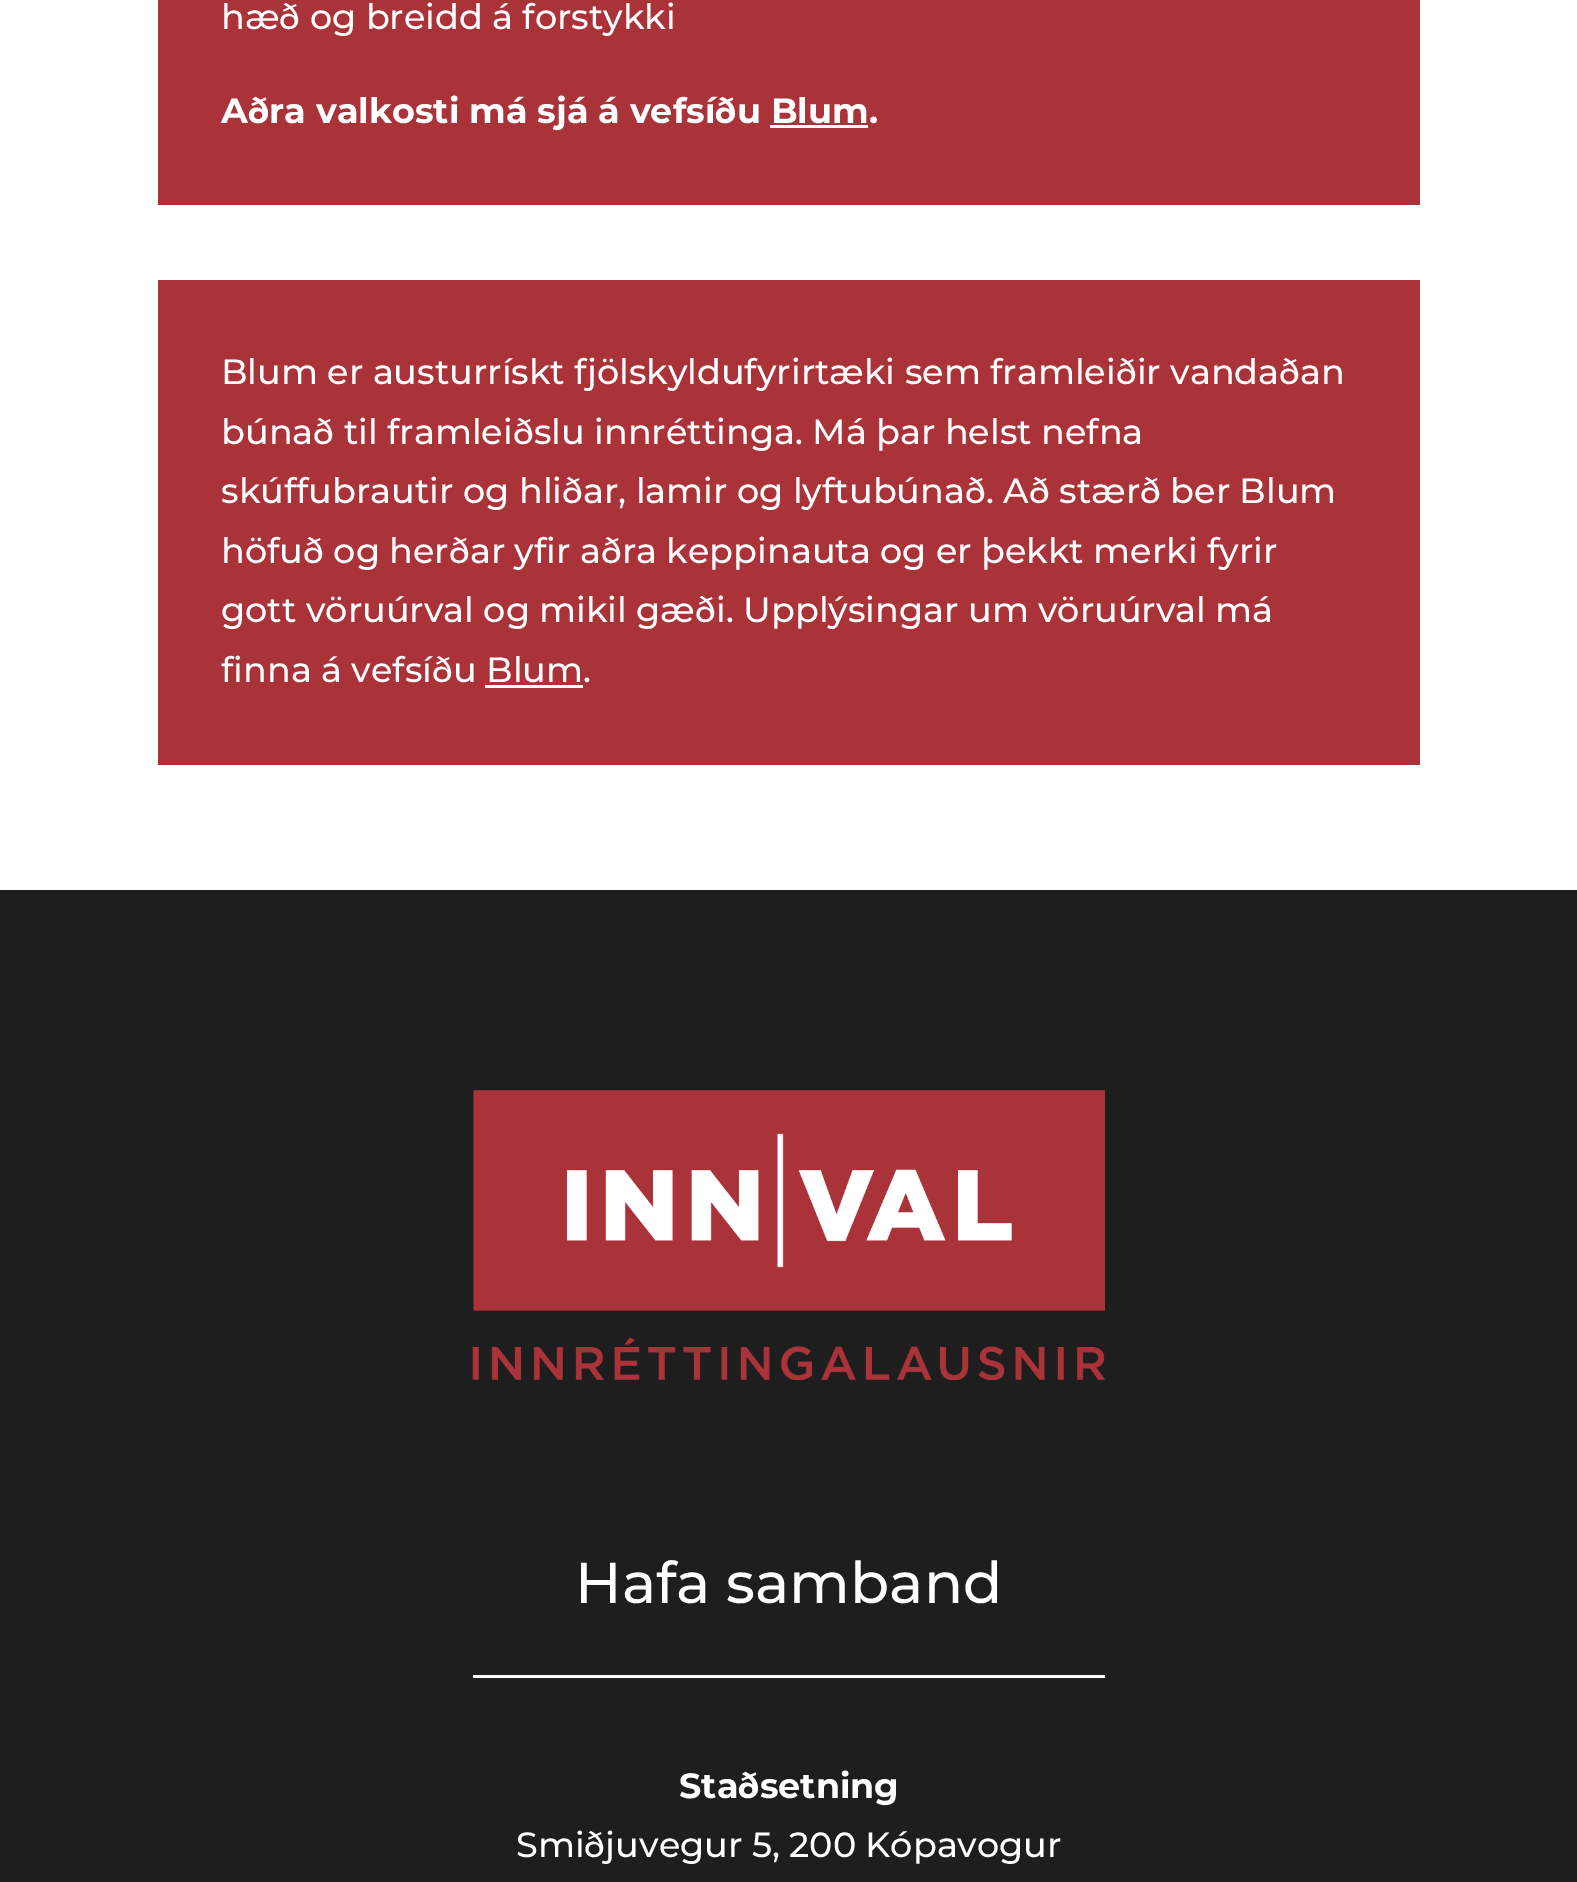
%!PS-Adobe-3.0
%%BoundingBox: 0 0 1577 1882
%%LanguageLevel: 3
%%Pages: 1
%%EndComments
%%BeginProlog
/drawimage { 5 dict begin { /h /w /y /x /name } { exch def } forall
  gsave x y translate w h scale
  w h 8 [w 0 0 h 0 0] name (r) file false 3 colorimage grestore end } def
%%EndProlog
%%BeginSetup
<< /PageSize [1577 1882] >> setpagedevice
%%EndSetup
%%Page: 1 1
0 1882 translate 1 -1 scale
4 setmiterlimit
1 setgray
0 0 1577 1882 rectfill
0.663 0.2 0.224 setrgbcolor
158 0 1262 205 rectfill
1 setgray
770 125 98 3 rectfill
0.663 0.2 0.224 setrgbcolor
158 280 1262 485 rectfill
1 setgray
485 685 98 3 rectfill
0.118 setgray
0 890 1577 992 rectfill
(images/1.raw) 472 1090 633 290 drawimage
1 setgray
473 1675 632 3 rectfill
/Montserrat-Thin [35 0 0 -35 0 0] selectfont
221 29 moveto (hæð og breidd á forstykki) show
/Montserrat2-Thin [35 0 0 -35 0 0] selectfont
221 123 moveto (Aðra valkosti má sjá á vefsíðu Blum.) show
/Montserrat-Thin [35 0 0 -35 0 0] selectfont
221 384 moveto (Blum er austurrískt fjölskyldufyrirtæki sem framleiðir vandaðan) show
221 444 moveto (búnað til framleiðslu innréttinga. Má þar helst nefna) show
221 503 moveto (skúffubrautir og hliðar, lamir og lyftubúnað. Að stærð ber Blum) show
221 563 moveto (höfuð og herðar yfir aðra keppinauta og er þekkt merki fyrir) show
221 622 moveto (gott vöruúrval og mikil gæði. Upplýsingar um vöruúrval má) show
221 682 moveto (finna á vefsíðu Blum.) show
/Montserrat-Thin [57.5 0 0 -57.5 0 0] selectfont
575 1603 moveto (Hafa samband) show
/Montserrat2-Thin [35 0 0 -35 0 0] selectfont
679 1798 moveto (Staðsetning) show
/Montserrat-Thin [35 0 0 -35 0 0] selectfont
516 1857 moveto (Smiðjuvegur 5, 200 Kópavogur) show
showpage
%%EOF
